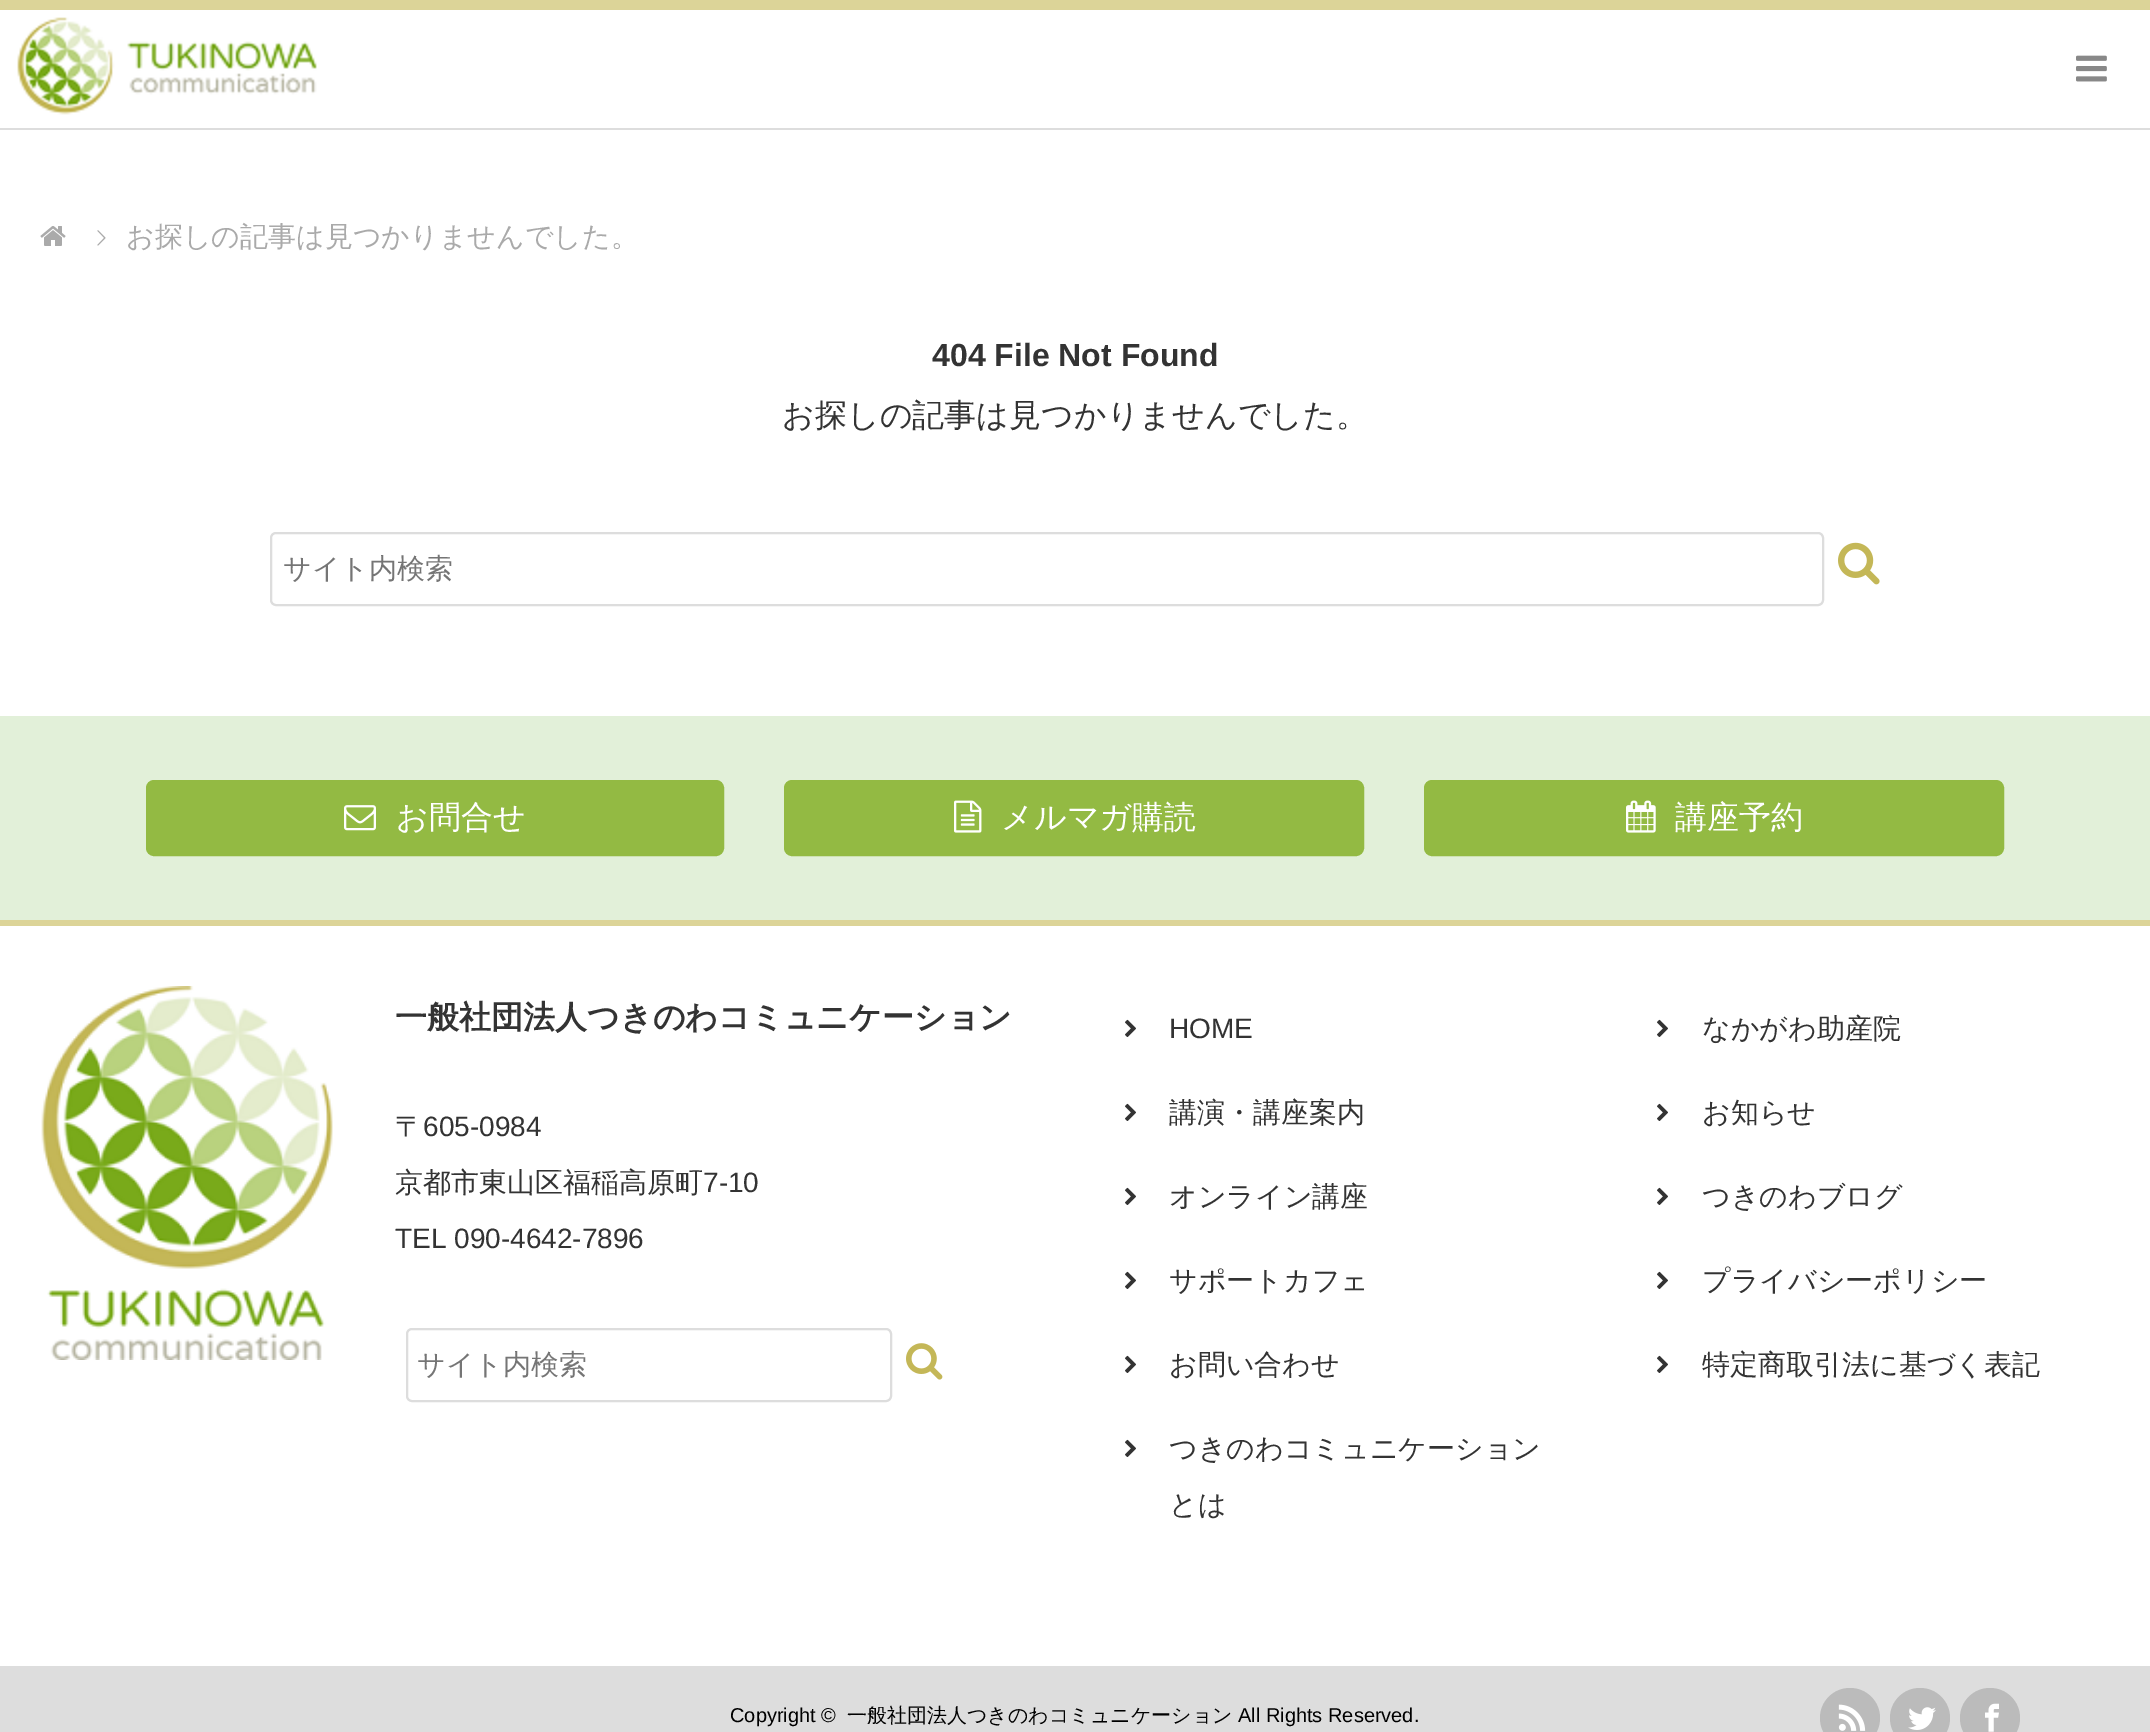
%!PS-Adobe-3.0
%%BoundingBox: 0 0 2150 1732
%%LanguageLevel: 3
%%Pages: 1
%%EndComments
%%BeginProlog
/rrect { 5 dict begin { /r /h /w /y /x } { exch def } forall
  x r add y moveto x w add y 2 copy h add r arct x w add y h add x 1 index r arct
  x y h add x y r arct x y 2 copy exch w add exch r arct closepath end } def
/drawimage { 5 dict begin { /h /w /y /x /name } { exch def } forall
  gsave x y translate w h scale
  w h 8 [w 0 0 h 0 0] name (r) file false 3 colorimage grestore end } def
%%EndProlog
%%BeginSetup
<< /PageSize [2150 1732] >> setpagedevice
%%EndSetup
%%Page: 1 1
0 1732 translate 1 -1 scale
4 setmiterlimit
1 setgray
0 0 2150 1732 rectfill
0.863 0.831 0.596 setrgbcolor
0 0 2150 10 rectfill
0.867 setgray
0 128 2150 2 rectfill
(images/1.raw) 17 17 300 98 drawimage
(images/2.raw) 2076 55 31 27 drawimage
(images/3.raw) 40 226 26 20 drawimage
(images/4.raw) 97 230 9 16 drawimage
2 setlinewidth
271 533 1552 72 5 rrect stroke
(images/5.raw) 1838 542 42 43 drawimage
0.886 0.941 0.851 setrgbcolor
0 716 2150 204 rectfill
0.576 0.729 0.263 setrgbcolor
147 781 576 74 7 rrect gsave fill grestore
stroke
(images/6.raw) 344 805 32 26 drawimage
785 781 578 74 7 rrect gsave fill grestore
stroke
(images/7.raw) 954 800 28 33 drawimage
1425 781 578 74 7 rrect gsave fill grestore
stroke
(images/8.raw) 1626 800 30 33 drawimage
0.863 0.831 0.596 setrgbcolor
0 920 2150 6 rectfill
(images/9.raw) 41 986 292 374 drawimage
0.867 setgray
407 1329 484 72 5 rrect stroke
(images/10.raw) 906 1343 37 37 drawimage
(images/11.raw) 1125 1019 11 18 drawimage
(images/11.raw) 1125 1103 11 18 drawimage
(images/11.raw) 1125 1187 11 18 drawimage
(images/11.raw) 1125 1271 11 18 drawimage
(images/11.raw) 1125 1355 11 18 drawimage
(images/11.raw) 1125 1439 11 18 drawimage
(images/11.raw) 1657 1019 11 18 drawimage
(images/11.raw) 1657 1103 11 18 drawimage
(images/11.raw) 1657 1187 11 18 drawimage
(images/11.raw) 1657 1271 11 18 drawimage
(images/11.raw) 1657 1355 11 18 drawimage
0 1666 2150 66 rectfill
0.733 setgray
newpath 1850 1718 30 0 360 arc closepath fill
(images/12.raw) 1838 1704 28 27 drawimage
newpath 1920 1718 30 0 360 arc closepath fill
(images/13.raw) 1908 1707 28 23 drawimage
newpath 1990 1718 30 0 360 arc closepath fill
(images/14.raw) 1985 1703 14 29 drawimage
/WenQuanYiZenHei-Medium [28 0 0 -28 0 0] selectfont
0.667 setgray
126 246 moveto (お探しの記事は見つかりませんでした。) show
/LiberationSans-Bold [32 0 0 -32 0 0] selectfont
0.2 setgray
932 366 moveto (404 File Not Found) show
/WenQuanYiZenHei-Medium [32 0 0 -32 0 0] selectfont
782 426 moveto (お探しの記事は見つかりませんでした。) show
/WenQuanYiZenHei-Medium [28 0 0 -28 0 0] selectfont
0.459 setgray
283 578 moveto (サイト内検索) show
/WenQuanYiZenHei-Medium [32 0 0 -32 0 0] selectfont
1 setgray
396 828 moveto (お問合せ) show
1001 828 moveto (メルマガ購読) show
1675 828 moveto (講座予約) show
/WenQuanYiZenHei-Bold [32 0 0 -32 0 0] selectfont
0.2 setgray
395 1028 moveto (一般社団法人つきのわコミュニケーション) show
/WenQuanYiZenHei-Medium [28 0 0 -28 0 0] selectfont
395 1136 moveto (〒) show
/LiberationSans-Regular [28 0 0 -28 0 0] selectfont
423 1136 moveto (605-0984) show
/WenQuanYiZenHei-Medium [28 0 0 -28 0 0] selectfont
395 1192 moveto (京都市東山区福稲高原町) show
/LiberationSans-Regular [28 0 0 -28 0 0] selectfont
703 1192 moveto (7-10) show
395 1248 moveto (TEL 090-4642-7896) show
/WenQuanYiZenHei-Medium [28 0 0 -28 0 0] selectfont
0.459 setgray
417 1374 moveto (サイト内検索) show
/LiberationSans-Regular [28 0 0 -28 0 0] selectfont
0.2 setgray
1169 1038 moveto (HOME) show
/WenQuanYiZenHei-Medium [28 0 0 -28 0 0] selectfont
1169 1122 moveto (講演・講座案内) show
1169 1206 moveto (オンライン講座) show
1169 1290 moveto (サポートカフェ) show
1169 1374 moveto (お問い合わせ) show
1169 1458 moveto (つきのわコミュニケーション) show
1169 1514 moveto (とは) show
1702 1038 moveto (なかがわ助産院) show
1702 1122 moveto (お知らせ) show
1702 1206 moveto (つきのわブログ) show
1702 1290 moveto (プライバシーポリシー) show
1702 1374 moveto (特定商取引法に基づく表記) show
/LiberationSans-Regular [20 0 0 -20 0 0] selectfont
0 setgray
730 1722 moveto (Copyright ©) show
/WenQuanYiZenHei-Medium [20 0 0 -20 0 0] selectfont
847 1722 moveto (一般社団法人つきのわコミュニケーション) show
/LiberationSans-Regular [20 0 0 -20 0 0] selectfont
1238 1722 moveto (All Rights Reserved.) show
showpage
%%EOF
